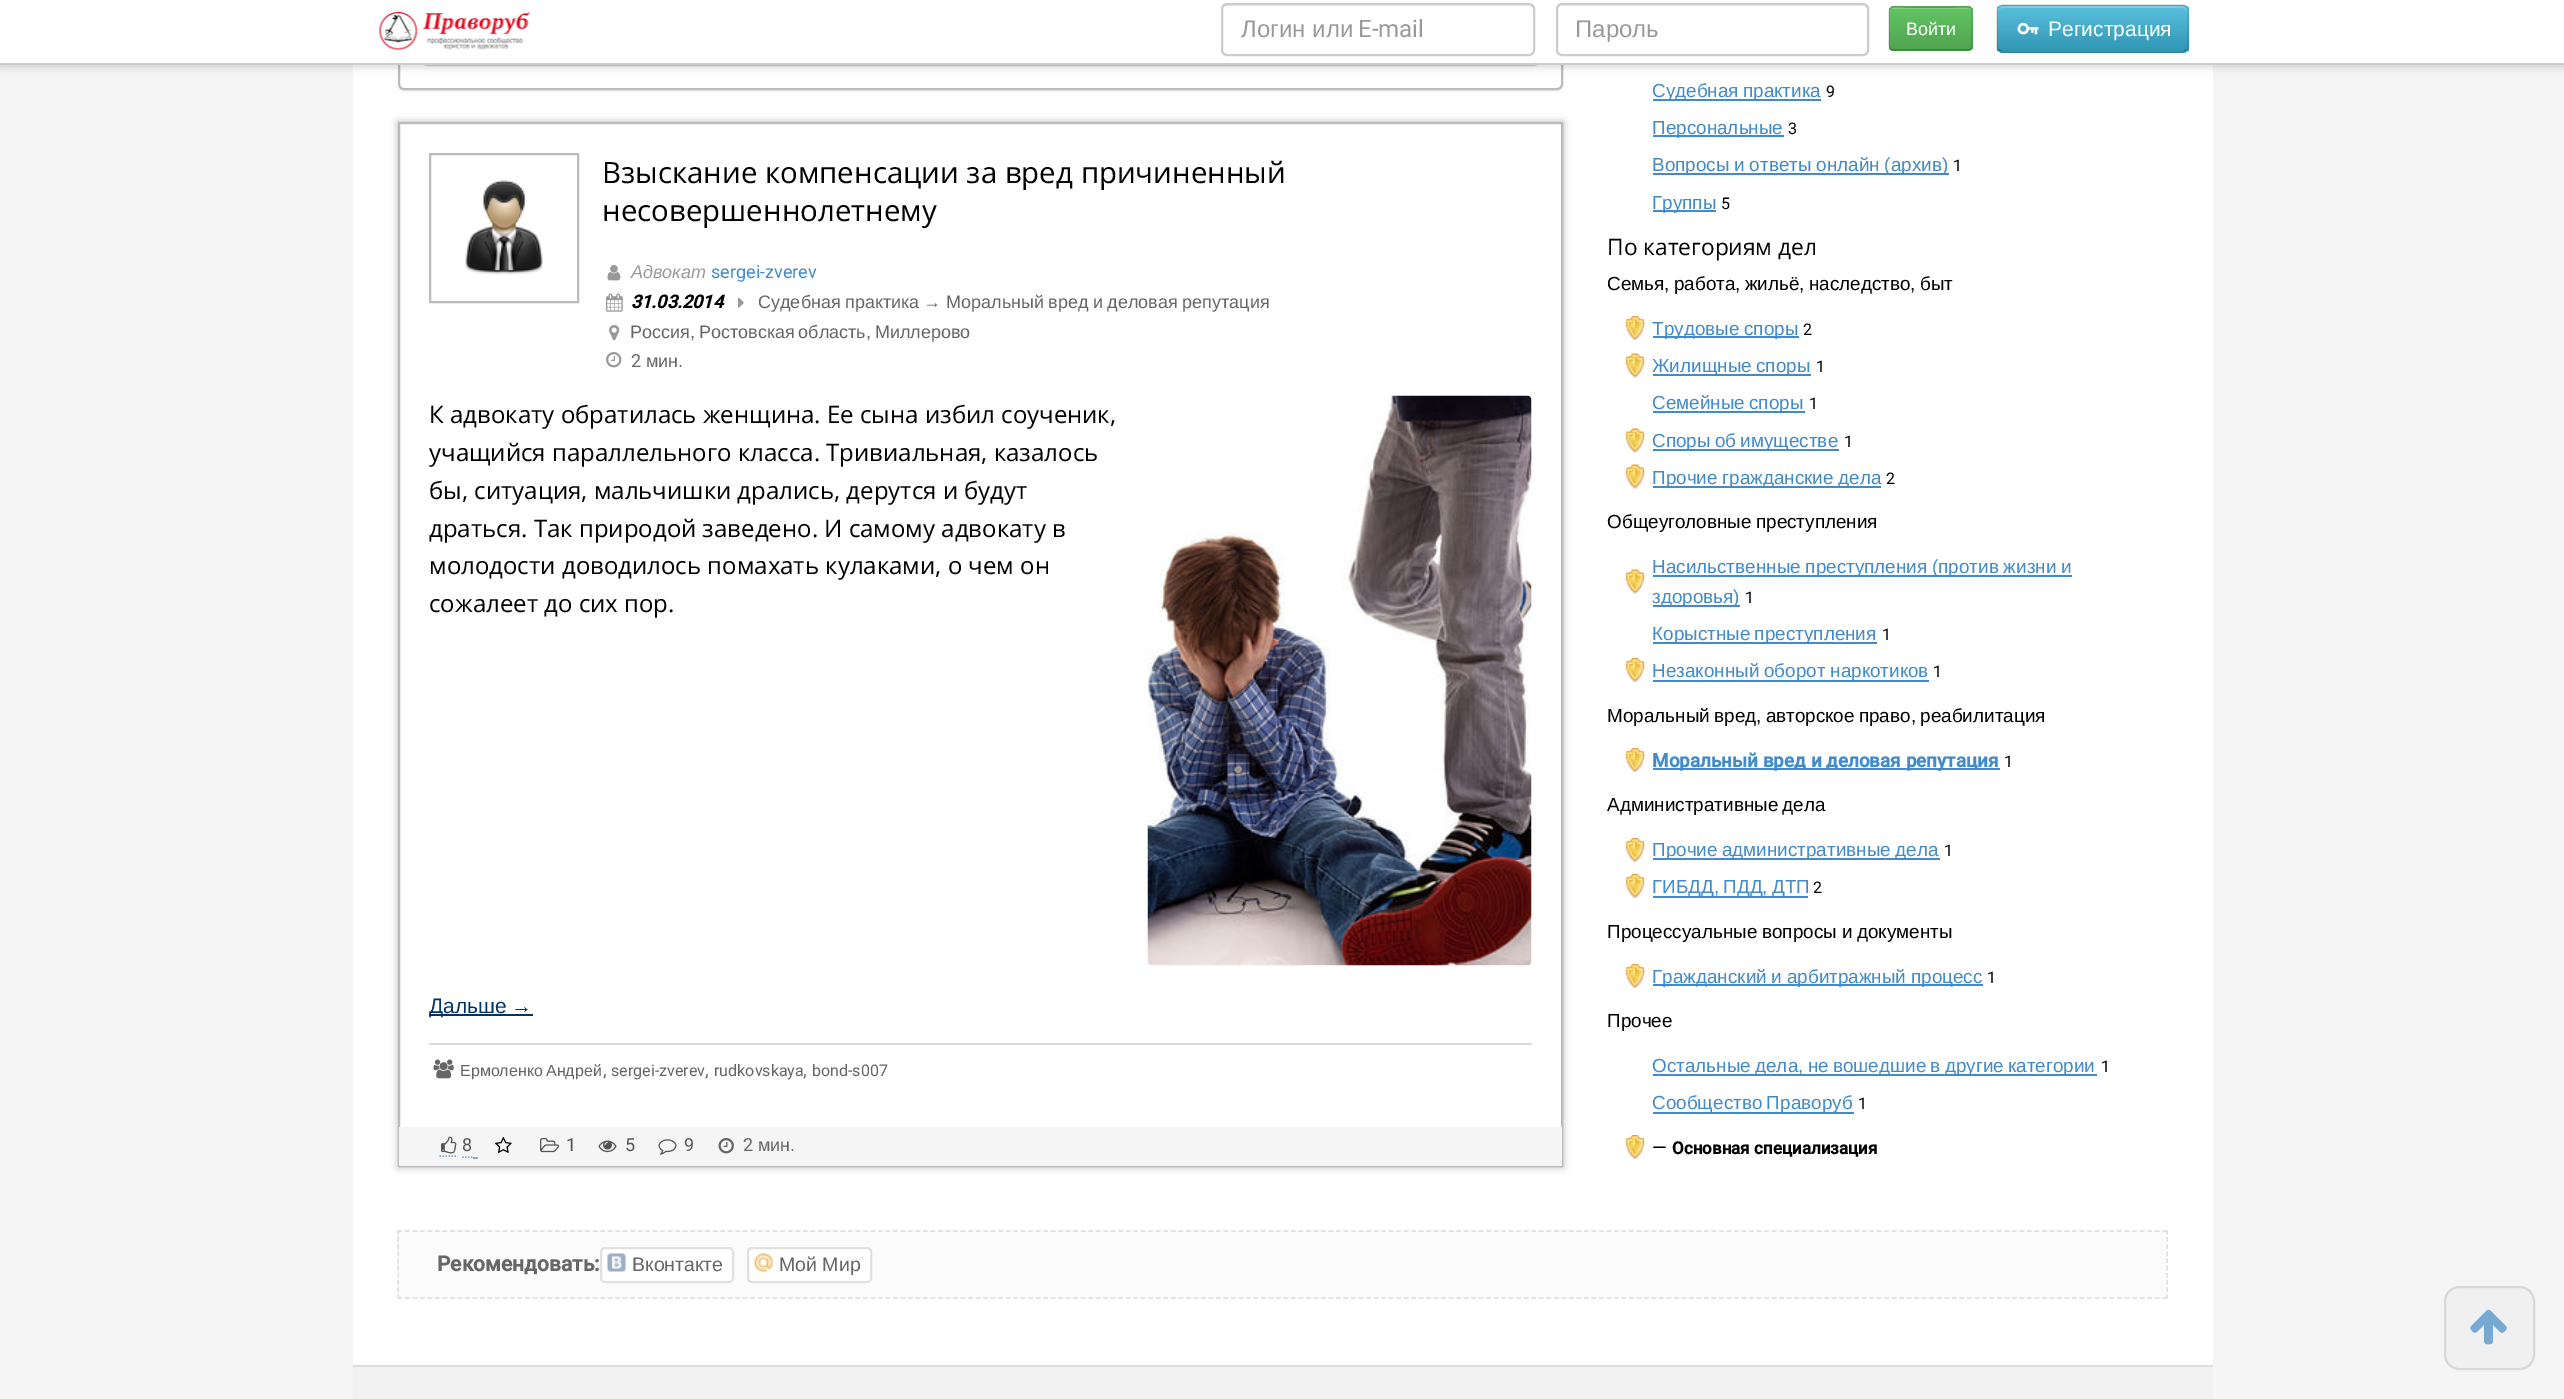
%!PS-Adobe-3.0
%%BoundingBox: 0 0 2564 1399
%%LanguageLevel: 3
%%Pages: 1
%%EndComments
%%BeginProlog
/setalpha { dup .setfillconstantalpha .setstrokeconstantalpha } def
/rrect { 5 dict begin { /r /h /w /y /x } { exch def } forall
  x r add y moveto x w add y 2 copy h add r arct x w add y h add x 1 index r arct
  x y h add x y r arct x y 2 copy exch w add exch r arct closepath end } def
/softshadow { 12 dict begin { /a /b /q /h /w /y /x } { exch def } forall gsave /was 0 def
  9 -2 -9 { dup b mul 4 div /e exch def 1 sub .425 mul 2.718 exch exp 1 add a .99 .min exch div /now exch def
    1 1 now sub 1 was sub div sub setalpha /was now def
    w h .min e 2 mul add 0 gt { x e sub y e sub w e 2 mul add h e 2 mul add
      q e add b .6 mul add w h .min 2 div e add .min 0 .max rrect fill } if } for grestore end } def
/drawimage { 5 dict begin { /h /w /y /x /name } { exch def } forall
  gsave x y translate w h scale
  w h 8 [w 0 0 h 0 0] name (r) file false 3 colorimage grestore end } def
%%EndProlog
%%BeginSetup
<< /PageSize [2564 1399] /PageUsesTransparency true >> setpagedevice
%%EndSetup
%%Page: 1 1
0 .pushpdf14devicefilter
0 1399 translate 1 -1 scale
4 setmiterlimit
0.961 setgray
0 0 2564 1399 rectfill
1 setgray
353 65 1860 1300 rectfill
0 setgray
398 -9 1165 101 6 1 0.05 softshadow
1 setgray
399 -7 1163 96 5 rrect gsave fill grestore
0.733 setgray
2 setlinewidth
stroke
0.808 0.831 0.855 setrgbcolor
423 34 1115 31 4 rrect stroke
0 setgray
0 2 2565 64 0 4.5 0.2 softshadow
1 setgray
0 0 2564 63 rectfill
0.8 setgray
0 63 2564 2 rectfill
(images/1.raw) 379 12 151 38 drawimage
0.925 setgray
newpath 1227 6 moveto 1528 6 lineto 1531 6 1533 8 1533 10 curveto 1533 7 1531 5 1528 5 curveto 1228 5 lineto 1226 5 1225 6 1224 7 curveto closepath fill
0.8 setgray
1222 4 312 51 5 rrect stroke
0.925 setgray
newpath 1562 6 moveto 1863 6 lineto 1865 6 1868 8 1868 10 curveto 1868 7 1866 5 1863 5 curveto 1562 5 lineto 1559 5 1557 7 1557 10 curveto 1557 8 1559 6 1562 6 curveto closepath fill
0.8 setgray
1557 4 311 51 5 rrect stroke
0 setgray
1889 8 84 45 5 1.5 0.05 softshadow
0.357 0.718 0.357 setrgbcolor
1889 6 84 45 5 rrect fill
gsave
1889 6 84 45 5 rrect clip newpath
gsave newpath 1889 8 moveto 1973 8 lineto 1973 50 lineto 1889 50 lineto closepath clip newpath
<< /ShadingType 2 /ColorSpace /DeviceRGB /Coords [1931 7.5 1931 50] /Extend [true true] /Function << /FunctionType 2 /Domain [0 1] /C0 [0.384 0.769 0.384] /C1 [0.318 0.639 0.318] /N 1 >> >> shfill grestore
grestore
0.2 setalpha
1 setgray
newpath 1893 9 moveto 1968 9 lineto 1970 9 1971 10 1971 12 curveto 1971 5 1959 8 1956 8 curveto 1906 8 lineto 1902 8 1890 5 1890 12 curveto 1890 10 1891 9 1893 9 curveto closepath fill
0.25 setalpha
0 setgray
1.5 setlinewidth
newpath 1970.5 49 moveto 1970 50 1969 50 1968 50 curveto 1893 50 lineto 1892 50 1891 50 1890.5 49 curveto stroke
0.1 setalpha
newpath 1890.5 49 moveto 1888.5 47 1889 42.5 1889 40.5 curveto 1889 16.5 lineto 1889 3.5 1891 7 1905.5 7 curveto 1955.5 7 lineto 1970 7 1972 3.5 1972 16.5 curveto 1972 40.5 lineto 1972 42.5 1972.5 47 1970.5 49 curveto stroke
1 setalpha
1997 6 192 48 6 1.5 0.05 softshadow
0.286 0.686 0.804 setrgbcolor
1997 5 192 48 6 rrect fill
gsave
1997 5 192 48 6 rrect clip newpath
gsave newpath 1997 6 moveto 2189 6 lineto 2189 51 lineto 1997 51 lineto closepath clip newpath
<< /ShadingType 2 /ColorSpace /DeviceRGB /Coords [2093 6 2093 51] /Extend [true true] /Function << /FunctionType 2 /Domain [0 1] /C0 [0.357 0.753 0.871] /C1 [0.184 0.588 0.706] /N 1 >> >> shfill grestore
grestore
0.2 setalpha
1 setgray
newpath 2002 8 moveto 2182 8 lineto 2185 8 2187 10 2187 12 curveto 2187 9 2186 7 2183 6 curveto 2002 6 lineto 1999 7 1998 9 1998 12 curveto 1998 10 2000 8 2002 8 curveto closepath fill
0.25 setalpha
0 setgray
newpath 2186 50 moveto 2185 51 2184 52 2182.5 52 curveto 2002.5 52 lineto 2001 52 2000 51 1999 50 curveto stroke
0.1 setalpha
newpath 1999 50 moveto 1998 49 1997 48 1997 46.5 curveto 1997 10.5 lineto 1997 9 1998 8 1999 7 curveto 2000 6 2001 5 2002.5 5 curveto 2182.5 5 lineto 2184 5 2185 6 2186 7 curveto 2187 8 2188 9 2188 10.5 curveto 2188 46.5 lineto 2188 48 2187 49 2186 50 curveto stroke
1 setalpha
(images/2.raw) 2017 22 22 13 drawimage
gsave
newpath 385 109 moveto 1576 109 lineto 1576 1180 lineto 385 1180 lineto closepath 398 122 moveto 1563 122 lineto 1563 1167 lineto 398 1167 lineto closepath eoclip newpath
398 122 1165 1045 0 4 0.3 softshadow
grestore
0.733 setgray
2 setlinewidth
399 123 1163 1043 rectstroke
430 154 148 148 rectstroke
(images/3.raw) 465 180 78 95 drawimage
(images/4.raw) 607 265 14 16 drawimage
(images/5.raw) 606 293 17 19 drawimage
(images/6.raw) 738 297 6 11 drawimage
(images/7.raw) 609 325 11 16 drawimage
(images/8.raw) 606 352 16 16 drawimage
(images/9.raw) 1147 395 385 571 drawimage
0 0.2 0.4 setrgbcolor
429 1014 104 2 rectfill
0.867 setgray
429 1043 1103 2 rectfill
(images/10.raw) 433 1059 21 20 drawimage
0.961 setgray
399 1127 1163 39 rectfill
0.518 0.667 0.8 setrgbcolor
1.5 setlinewidth
[1.5 1.5] 0 setdash
newpath 439.5 1156 moveto 457.5 1156 lineto stroke
[] 0 setdash
newpath 462 1157 moveto 463.5 1157 lineto 465 1157 moveto 466.5 1157 lineto 468 1157 moveto 469.5 1157 lineto 471 1157 moveto 472.5 1157 lineto stroke
473 1157 5 2 rectfill
(images/11.raw) 441 1136 16 18 drawimage
(images/12.raw) 495 1137 17 16 drawimage
(images/13.raw) 540 1138 20 15 drawimage
(images/14.raw) 598 1140 19 13 drawimage
(images/15.raw) 658 1139 19 16 drawimage
(images/16.raw) 718 1138 16 16 drawimage
0.259 0.545 0.792 setrgbcolor
1653 99 168 2 rectfill
1653 135 131 2 rectfill
1653 173 296 2 rectfill
1653 210 63 2 rectfill
(images/17.raw) 1625 316 20 24 drawimage
1653 336 146 2 rectfill
(images/18.raw) 1625 353 20 25 drawimage
1653 374 158 2 rectfill
1653 411 152 2 rectfill
(images/18.raw) 1625 428 20 25 drawimage
1653 449 186 2 rectfill
(images/18.raw) 1625 464 20 25 drawimage
1653 486 228 2 rectfill
(images/18.raw) 1625 569 20 25 drawimage
1653 575 419 2 rectfill
1653 605 87 2 rectfill
1653 642 224 2 rectfill
(images/17.raw) 1625 658 20 24 drawimage
1653 680 276 2 rectfill
(images/17.raw) 1625 748 20 24 drawimage
1653 768 347 2 rectfill
(images/17.raw) 1625 838 20 24 drawimage
1653 858 287 2 rectfill
(images/17.raw) 1625 874 20 24 drawimage
1653 896 155 2 rectfill
(images/17.raw) 1625 964 20 24 drawimage
1653 984 330 2 rectfill
1653 1074 444 2 rectfill
1653 1112 201 2 rectfill
(images/17.raw) 1625 1135 20 24 drawimage
0.984 setgray
398 1230 1770 69 rectfill
0.878 setgray
[4.5 3.01] 0 setdash
newpath 397.5 1231 moveto 2167.5 1231 lineto stroke
[4.5 2.67] 0 setdash
newpath 2167 1230 moveto 2167 1299 lineto stroke
[4.5 3.01] 0 setdash
newpath 397.5 1298 moveto 2167.5 1298 lineto stroke
[4.5 2.67] 0 setdash
newpath 398 1230 moveto 398 1299 lineto stroke
1 setgray
601 1248 132 34 4 rrect gsave fill grestore
0.878 setgray
2 setlinewidth
[] 0 setdash
stroke
(images/19.raw) 607 1253 19 19 drawimage
1 setgray
748 1248 123 34 4 rrect gsave fill grestore
0.878 setgray
stroke
(images/20.raw) 754 1253 19 19 drawimage
0.941 setgray
2445 1287 89 82 14 rrect gsave fill grestore
0.847 setgray
stroke
(images/21.raw) 2470 1309 37 36 drawimage
0.945 setgray
353 1367 1860 32 rectfill
0.867 setgray
353 1365 1860 2 rectfill
/LiberationSans-Regular [24 0 0 -24 0 0] selectfont
0.6 setgray
1241 37 moveto (Логин или) show
/Roboto-Regular [24 0 0 -24 0 0] selectfont
1358 37 moveto (E-mail) show
/LiberationSans-Regular [24 0 0 -24 0 0] selectfont
1575 37 moveto (Пароль) show
/LiberationSans-Regular [18 0 0 -18 0 0] selectfont
1 setgray
1906 35 moveto (Войти) show
/LiberationSans-Regular [21 0 0 -21 0 0] selectfont
2048 36 moveto (Регистрация) show
/OpenSans-Regular [29.4 0 0 -29.4 0 0] selectfont
0 setgray
602 183 moveto (Взыскание компенсации за вред причиненный) show
602 221 moveto (несовершеннолетнему) show
/LiberationSans-Italic [18 0 0 -18 0 0] selectfont
0.6 setgray
631 278 moveto (Адвокат) show
/Roboto-Regular [18 0 0 -18 0 0] selectfont
0.259 0.545 0.792 setrgbcolor
711 278 moveto (sergei-zverev) show
/Roboto-BoldItalic [18 0 0 -18 0 0] selectfont
0 setgray
631 308 moveto (31.03.2014) show
/LiberationSans-Regular [18 0 0 -18 0 0] selectfont
0.4 setgray
758 308 moveto -0.5 0 32 (Судебная практика) widthshow
923 308 moveto (→) show
946 308 moveto -0.5 0 32 (Моральный вред и деловая репутация) widthshow
630 338 moveto -1 0 32 (Россия, Ростовская область, Миллерово) widthshow
/Roboto-Regular [18 0 0 -18 0 0] selectfont
631 367 moveto (2) show
/LiberationSans-Regular [18 0 0 -18 0 0] selectfont
646 367 moveto (мин.) show
/OpenSans-Regular [24 0 0 -24 0 0] selectfont
0 setgray
429 423 moveto (К адвокату обратилась женщина. Ее сына избил соученик,) show
429 461 moveto (учащийся параллельного класса. Тривиальная, казалось) show
429 499 moveto (бы, ситуация, мальчишки дрались, дерутся и будут) show
429 537 moveto (драться. Так природой заведено. И самому адвокату в) show
429 574 moveto (молодости доводилось помахать кулаками, о чем он) show
429 612 moveto (сожалеет до сих пор.) show
/LiberationSans-Regular [21 0 0 -21 0 0] selectfont
0 0.2 0.4 setrgbcolor
429 1013 moveto -1 0 32 (Дальше →) widthshow
/LiberationSans-Regular [16 0 0 -16 0 0] selectfont
0.4 setgray
460 1076 moveto -1 0 32 (Ермоленко Андрей) widthshow
/Roboto-Regular [18.9 0 0 -18.9 0 0] selectfont
603 1076 moveto (,) show
/Roboto-Regular [16 0 0 -16 0 0] selectfont
611 1076 moveto (sergei-zverev) show
/Roboto-Regular [18.9 0 0 -18.9 0 0] selectfont
705 1076 moveto (,) show
/Roboto-Regular [16 0 0 -16 0 0] selectfont
714 1076 moveto (rudkovskaya) show
/Roboto-Regular [18.9 0 0 -18.9 0 0] selectfont
803 1076 moveto (,) show
/Roboto-Regular [16 0 0 -16 0 0] selectfont
812 1076 moveto (bond-s007) show
/Roboto-Regular [18 0 0 -18 0 0] selectfont
0.333 setgray
462 1151 moveto (8) show
566 1151 moveto (1) show
625 1151 moveto (5) show
684 1151 moveto (9) show
0.4 setgray
743 1151 moveto (2) show
/LiberationSans-Regular [18 0 0 -18 0 0] selectfont
758 1151 moveto (мин.) show
/LiberationSans-Regular [18.9 0 0 -18.9 0 0] selectfont
0.259 0.545 0.792 setrgbcolor
1652 97 moveto -1 0 32 (Судебная практика) widthshow
/Roboto-Regular [16 0 0 -16 0 0] selectfont
0 setgray
1826 97 moveto (9) show
/LiberationSans-Regular [18.9 0 0 -18.9 0 0] selectfont
0.259 0.545 0.792 setrgbcolor
1652 134 moveto (Персональные) show
/Roboto-Regular [16 0 0 -16 0 0] selectfont
0 setgray
1788 134 moveto (3) show
/LiberationSans-Regular [18.9 0 0 -18.9 0 0] selectfont
0.259 0.545 0.792 setrgbcolor
1652 171 moveto -0.5 0 32 (Вопросы и ответы онлайн \(архив\)) widthshow
/Roboto-Regular [16 0 0 -16 0 0] selectfont
0 setgray
1953 171 moveto (1) show
/LiberationSans-Regular [18.9 0 0 -18.9 0 0] selectfont
0.259 0.545 0.792 setrgbcolor
1652 209 moveto (Группы) show
/Roboto-Regular [16 0 0 -16 0 0] selectfont
0 setgray
1721 209 moveto (5) show
/OpenSans-Regular [22.75 0 0 -22.75 0 0] selectfont
1607 255 moveto (По категориям дел) show
/LiberationSans-Regular [18.9 0 0 -18.9 0 0] selectfont
1607 290 moveto -1 0 32 (Семья, работа, жильё, наследство, быт) widthshow
0.259 0.545 0.792 setrgbcolor
1652 335 moveto -0.5 0 32 (Трудовые споры) widthshow
/Roboto-Regular [16 0 0 -16 0 0] selectfont
0 setgray
1803 335 moveto (2) show
/LiberationSans-Regular [18.9 0 0 -18.9 0 0] selectfont
0.259 0.545 0.792 setrgbcolor
1652 372 moveto -1 0 32 (Жилищные споры) widthshow
/Roboto-Regular [16 0 0 -16 0 0] selectfont
0 setgray
1816 372 moveto (1) show
/LiberationSans-Regular [18.9 0 0 -18.9 0 0] selectfont
0.259 0.545 0.792 setrgbcolor
1652 409 moveto -1 0 32 (Семейные споры) widthshow
/Roboto-Regular [16 0 0 -16 0 0] selectfont
0 setgray
1809 409 moveto (1) show
/LiberationSans-Regular [18.9 0 0 -18.9 0 0] selectfont
0.259 0.545 0.792 setrgbcolor
1652 447 moveto -1 0 32 (Споры об имуществе) widthshow
/Roboto-Regular [16 0 0 -16 0 0] selectfont
0 setgray
1844 447 moveto (1) show
/LiberationSans-Regular [18.9 0 0 -18.9 0 0] selectfont
0.259 0.545 0.792 setrgbcolor
1652 484 moveto -0.5 0 32 (Прочие гражданские дела) widthshow
/Roboto-Regular [16 0 0 -16 0 0] selectfont
0 setgray
1886 484 moveto (2) show
/LiberationSans-Regular [18.9 0 0 -18.9 0 0] selectfont
1607 528 moveto -1 0 32 (Общеуголовные преступления) widthshow
0.259 0.545 0.792 setrgbcolor
1652 573 moveto -0.5 0 32 (Насильственные преступления \(против жизни и) widthshow
1652 603 moveto (здоровья\)) show
/Roboto-Regular [16 0 0 -16 0 0] selectfont
0 setgray
1745 603 moveto (1) show
/LiberationSans-Regular [18.9 0 0 -18.9 0 0] selectfont
0.259 0.545 0.792 setrgbcolor
1652 640 moveto -1 0 32 (Корыстные преступления) widthshow
/Roboto-Regular [16 0 0 -16 0 0] selectfont
0 setgray
1882 640 moveto (1) show
/LiberationSans-Regular [18.9 0 0 -18.9 0 0] selectfont
0.259 0.545 0.792 setrgbcolor
1652 677 moveto -0.5 0 32 (Незаконный оборот наркотиков) widthshow
/Roboto-Regular [16 0 0 -16 0 0] selectfont
0 setgray
1933 677 moveto (1) show
/LiberationSans-Regular [18.9 0 0 -18.9 0 0] selectfont
1607 722 moveto -1 0 32 (Моральный вред, авторское право, реабилитация) widthshow
/Roboto-Bold [18.9 0 0 -18.9 0 0] selectfont
0.259 0.545 0.792 setrgbcolor
1652 767 moveto (Моральный вред и деловая репутация) show
/Roboto-Regular [16 0 0 -16 0 0] selectfont
0 setgray
2004 767 moveto (1) show
/LiberationSans-Regular [18.9 0 0 -18.9 0 0] selectfont
1607 811 moveto -1 0 32 (Административные дела) widthshow
0.259 0.545 0.792 setrgbcolor
1652 856 moveto -1 0 32 (Прочие административные дела) widthshow
/Roboto-Regular [16 0 0 -16 0 0] selectfont
0 setgray
1944 856 moveto (1) show
/LiberationSans-Regular [18.9 0 0 -18.9 0 0] selectfont
0.259 0.545 0.792 setrgbcolor
1652 893 moveto -1 0 32 (ГИБДД, ПДД, ДТП) widthshow
/Roboto-Regular [16 0 0 -16 0 0] selectfont
0 setgray
1813 893 moveto (2) show
/LiberationSans-Regular [18.9 0 0 -18.9 0 0] selectfont
1607 938 moveto -0.5 0 32 (Процессуальные вопросы и документы) widthshow
0.259 0.545 0.792 setrgbcolor
1652 983 moveto -0.5 0 32 (Гражданский и арбитражный процесс) widthshow
/Roboto-Regular [16 0 0 -16 0 0] selectfont
0 setgray
1987 983 moveto (1) show
/LiberationSans-Regular [18.9 0 0 -18.9 0 0] selectfont
1607 1027 moveto (Прочее) show
0.259 0.545 0.792 setrgbcolor
1652 1072 moveto -1 0 32 (Остальные дела, не вошедшие в другие категории) widthshow
/Roboto-Regular [16 0 0 -16 0 0] selectfont
0 setgray
2101 1072 moveto (1) show
/LiberationSans-Regular [18.9 0 0 -18.9 0 0] selectfont
0.259 0.545 0.792 setrgbcolor
1652 1109 moveto -1 0 32 (Сообщество Праворуб) widthshow
/Roboto-Regular [16 0 0 -16 0 0] selectfont
0 setgray
1858 1109 moveto (1) show
/Roboto-Regular [18.9 0 0 -18.9 0 0] selectfont
1652 1154 moveto (—) show
/Roboto-Bold [17 0 0 -17 0 0] selectfont
1672 1154 moveto (Основная специализация) show
/Roboto-Bold [21 0 0 -21 0 0] selectfont
0.4 setgray
437 1271 moveto (Рекомендовать:) show
/LiberationSans-Regular [19.5 0 0 -19.5 0 0] selectfont
632 1271 moveto (Вконтакте) show
779 1271 moveto (Мой Мир) show
.poppdf14devicefilter showpage
%%EOF
